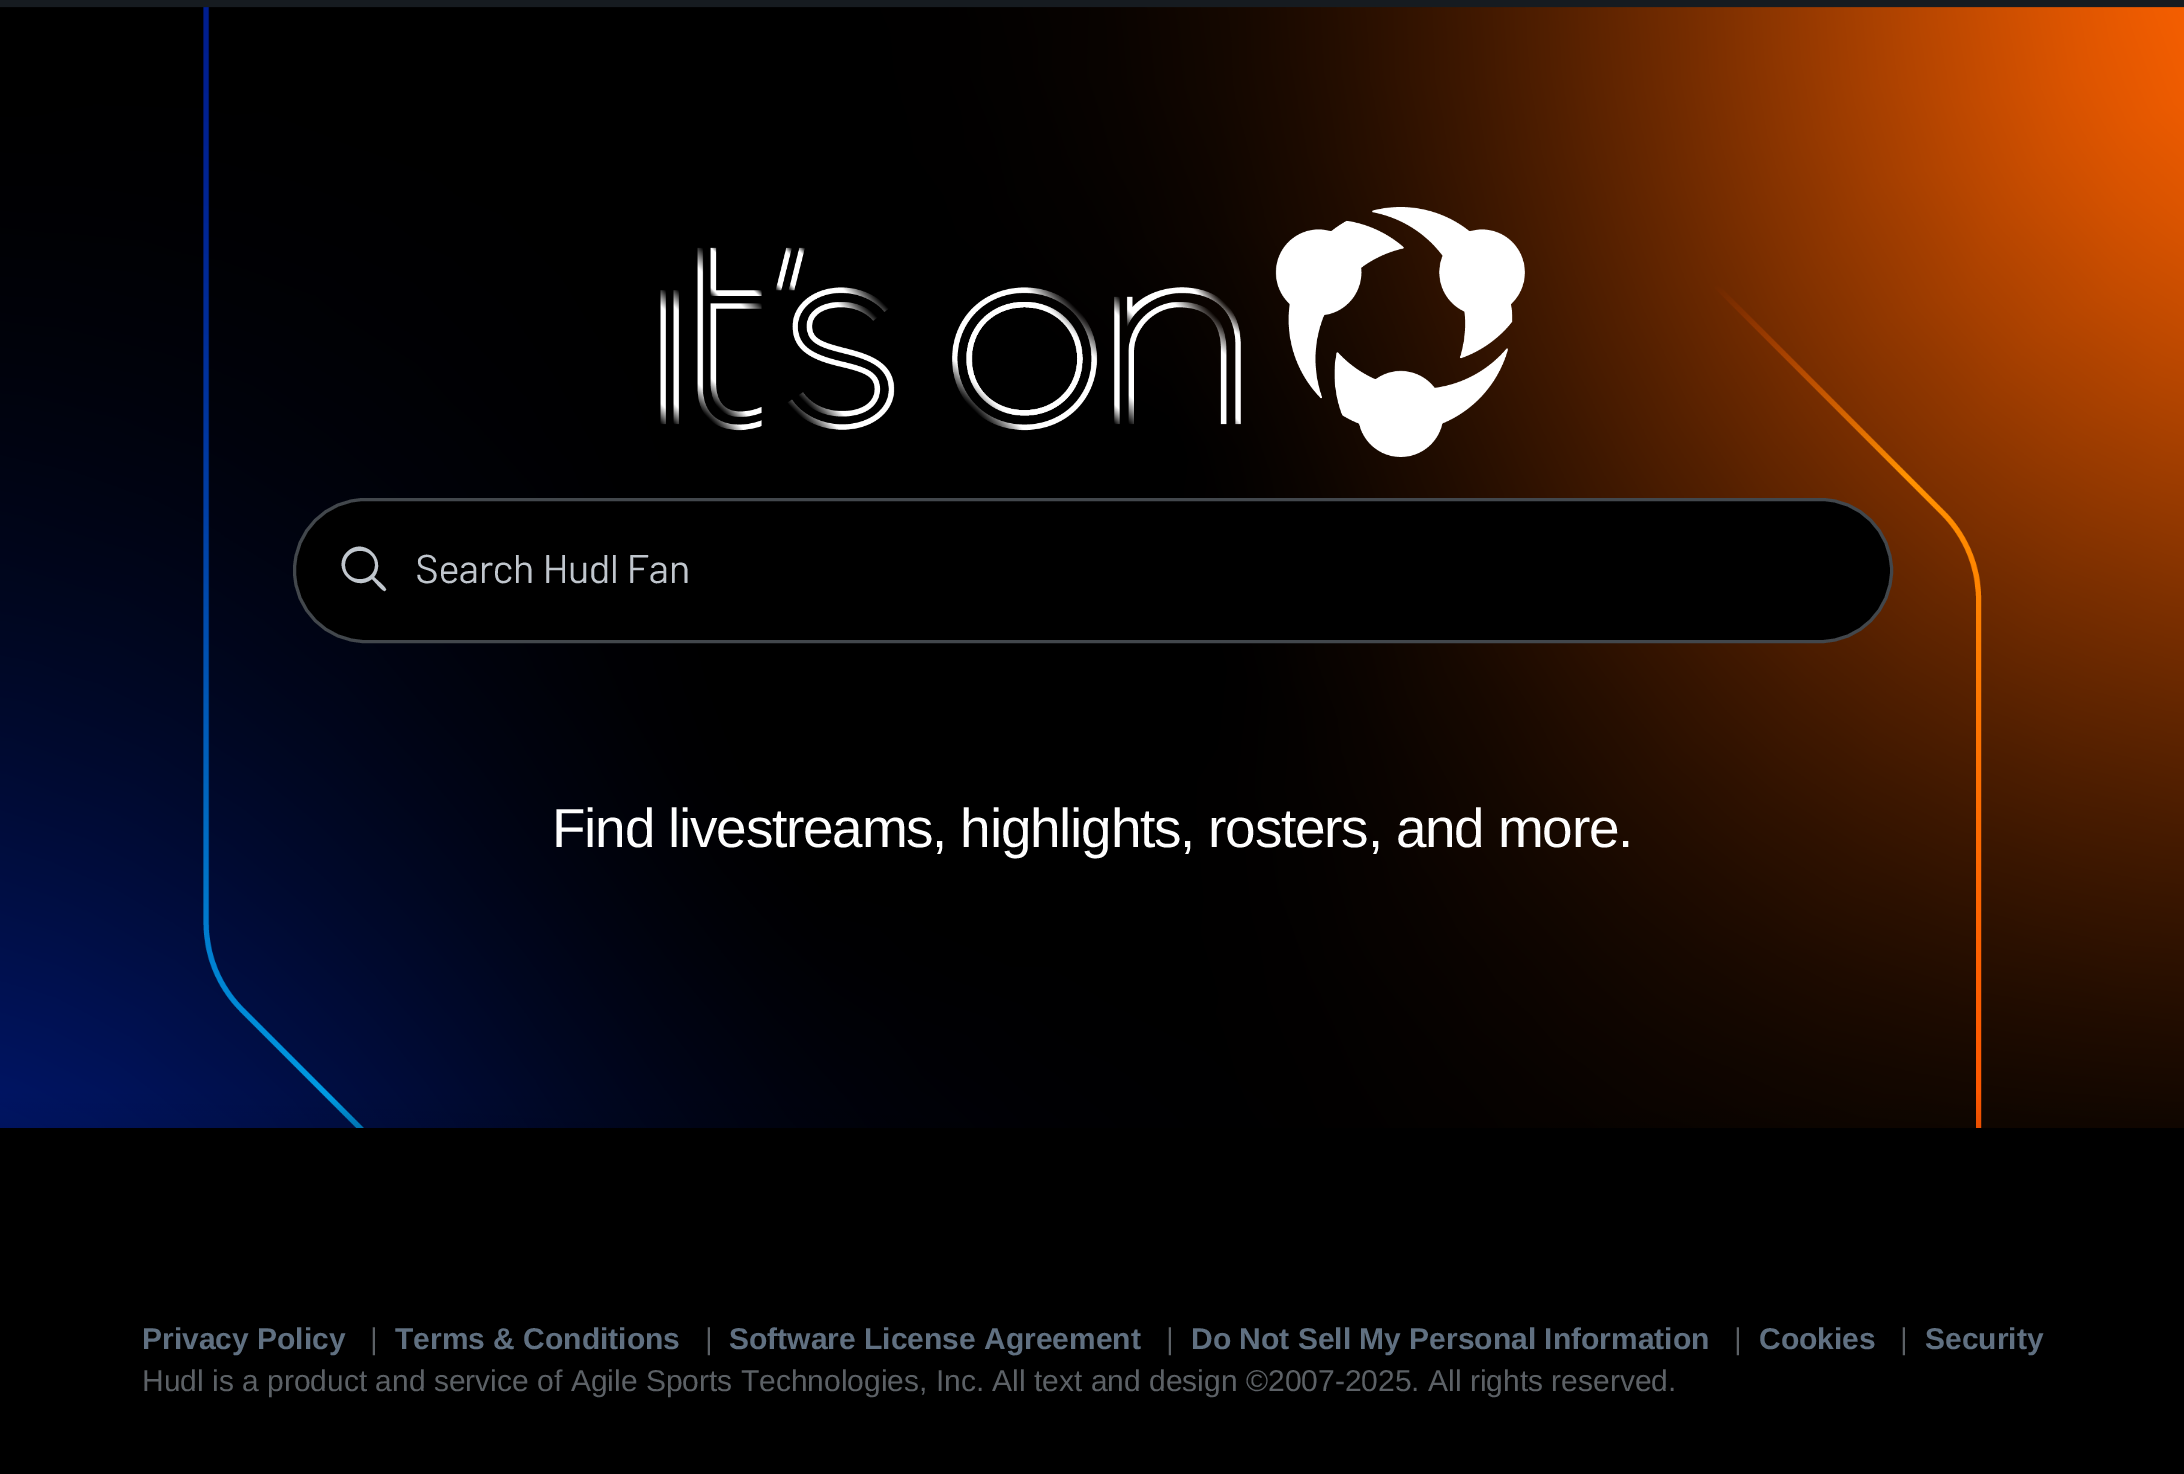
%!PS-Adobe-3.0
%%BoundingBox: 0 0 2184 1474
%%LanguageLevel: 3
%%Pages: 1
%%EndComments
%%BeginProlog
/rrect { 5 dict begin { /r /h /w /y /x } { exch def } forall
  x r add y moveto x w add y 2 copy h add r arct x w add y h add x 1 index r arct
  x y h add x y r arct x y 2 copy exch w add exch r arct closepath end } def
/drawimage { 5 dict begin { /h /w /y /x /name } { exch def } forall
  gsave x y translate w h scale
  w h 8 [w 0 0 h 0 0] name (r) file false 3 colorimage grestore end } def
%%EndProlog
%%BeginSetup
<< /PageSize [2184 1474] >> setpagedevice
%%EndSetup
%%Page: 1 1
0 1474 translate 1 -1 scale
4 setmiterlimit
0.086 0.106 0.125 setrgbcolor
0 0 2184 1474 rectfill
(images/1.raw) 0 7 2184 1121 drawimage
(images/2.raw) 660 207 865 250 drawimage
0 setgray
294.5 499.5 1597 142 71 rrect gsave fill grestore
0.259 0.278 0.298 setrgbcolor
3 setlinewidth
stroke
0.753 0.776 0.804 setrgbcolor
newpath 386 590 moveto 387 588 377 580 374 577 curveto 388 559 363 536 347 552 curveto 331 568 354 593 372 579 curveto 375 582 383 592 385 591 curveto closepath 345 565 moveto 345 546 375 546 375 565 curveto 375 584 345 584 345 565 curveto eofill
0 setgray
0 1128 2184 346 rectfill
/Barlow-Regular [40 0 0 -40 0 0] selectfont
0.753 0.776 0.804 setrgbcolor
415 583 moveto (Search Hudl Fan) show
/LiberationSans-Regular [55 0 0 -55 0 0] selectfont
0.996 setgray
552 847 moveto -1.25 0 (Find livestreams, highlights, rosters, and more.) ashow
/LiberationSans-Bold [30 0 0 -30 0 0] selectfont
0.376 0.439 0.506 setrgbcolor
142 1349 moveto (Privacy Policy) show
/LiberationSans-Regular [30 0 0 -30 0 0] selectfont
0.361 0.38 0.4 setrgbcolor
370 1349 moveto (|) show
/LiberationSans-Bold [30 0 0 -30 0 0] selectfont
0.376 0.439 0.506 setrgbcolor
395 1349 moveto (Terms & Conditions) show
/LiberationSans-Regular [30 0 0 -30 0 0] selectfont
0.361 0.38 0.4 setrgbcolor
705 1349 moveto (|) show
/LiberationSans-Bold [30 0 0 -30 0 0] selectfont
0.376 0.439 0.506 setrgbcolor
729 1349 moveto (Software License Agreement) show
/LiberationSans-Regular [30 0 0 -30 0 0] selectfont
0.361 0.38 0.4 setrgbcolor
1166 1349 moveto (|) show
/LiberationSans-Bold [30 0 0 -30 0 0] selectfont
0.376 0.439 0.506 setrgbcolor
1191 1349 moveto (Do Not Sell My Personal Information) show
/LiberationSans-Regular [30 0 0 -30 0 0] selectfont
0.361 0.38 0.4 setrgbcolor
1734 1349 moveto (|) show
/LiberationSans-Bold [30 0 0 -30 0 0] selectfont
0.376 0.439 0.506 setrgbcolor
1759 1349 moveto (Cookies) show
/LiberationSans-Regular [30 0 0 -30 0 0] selectfont
0.361 0.38 0.4 setrgbcolor
1900 1349 moveto (|) show
/LiberationSans-Bold [30 0 0 -30 0 0] selectfont
0.376 0.439 0.506 setrgbcolor
1925 1349 moveto (Security) show
/LiberationSans-Regular [30 0 0 -30 0 0] selectfont
0.361 0.38 0.4 setrgbcolor
142 1391 moveto (Hudl is a product and service of Agile Sports Technologies, Inc. All text and design ©2007-2025. All rights reserved.) show
showpage
%%EOF
